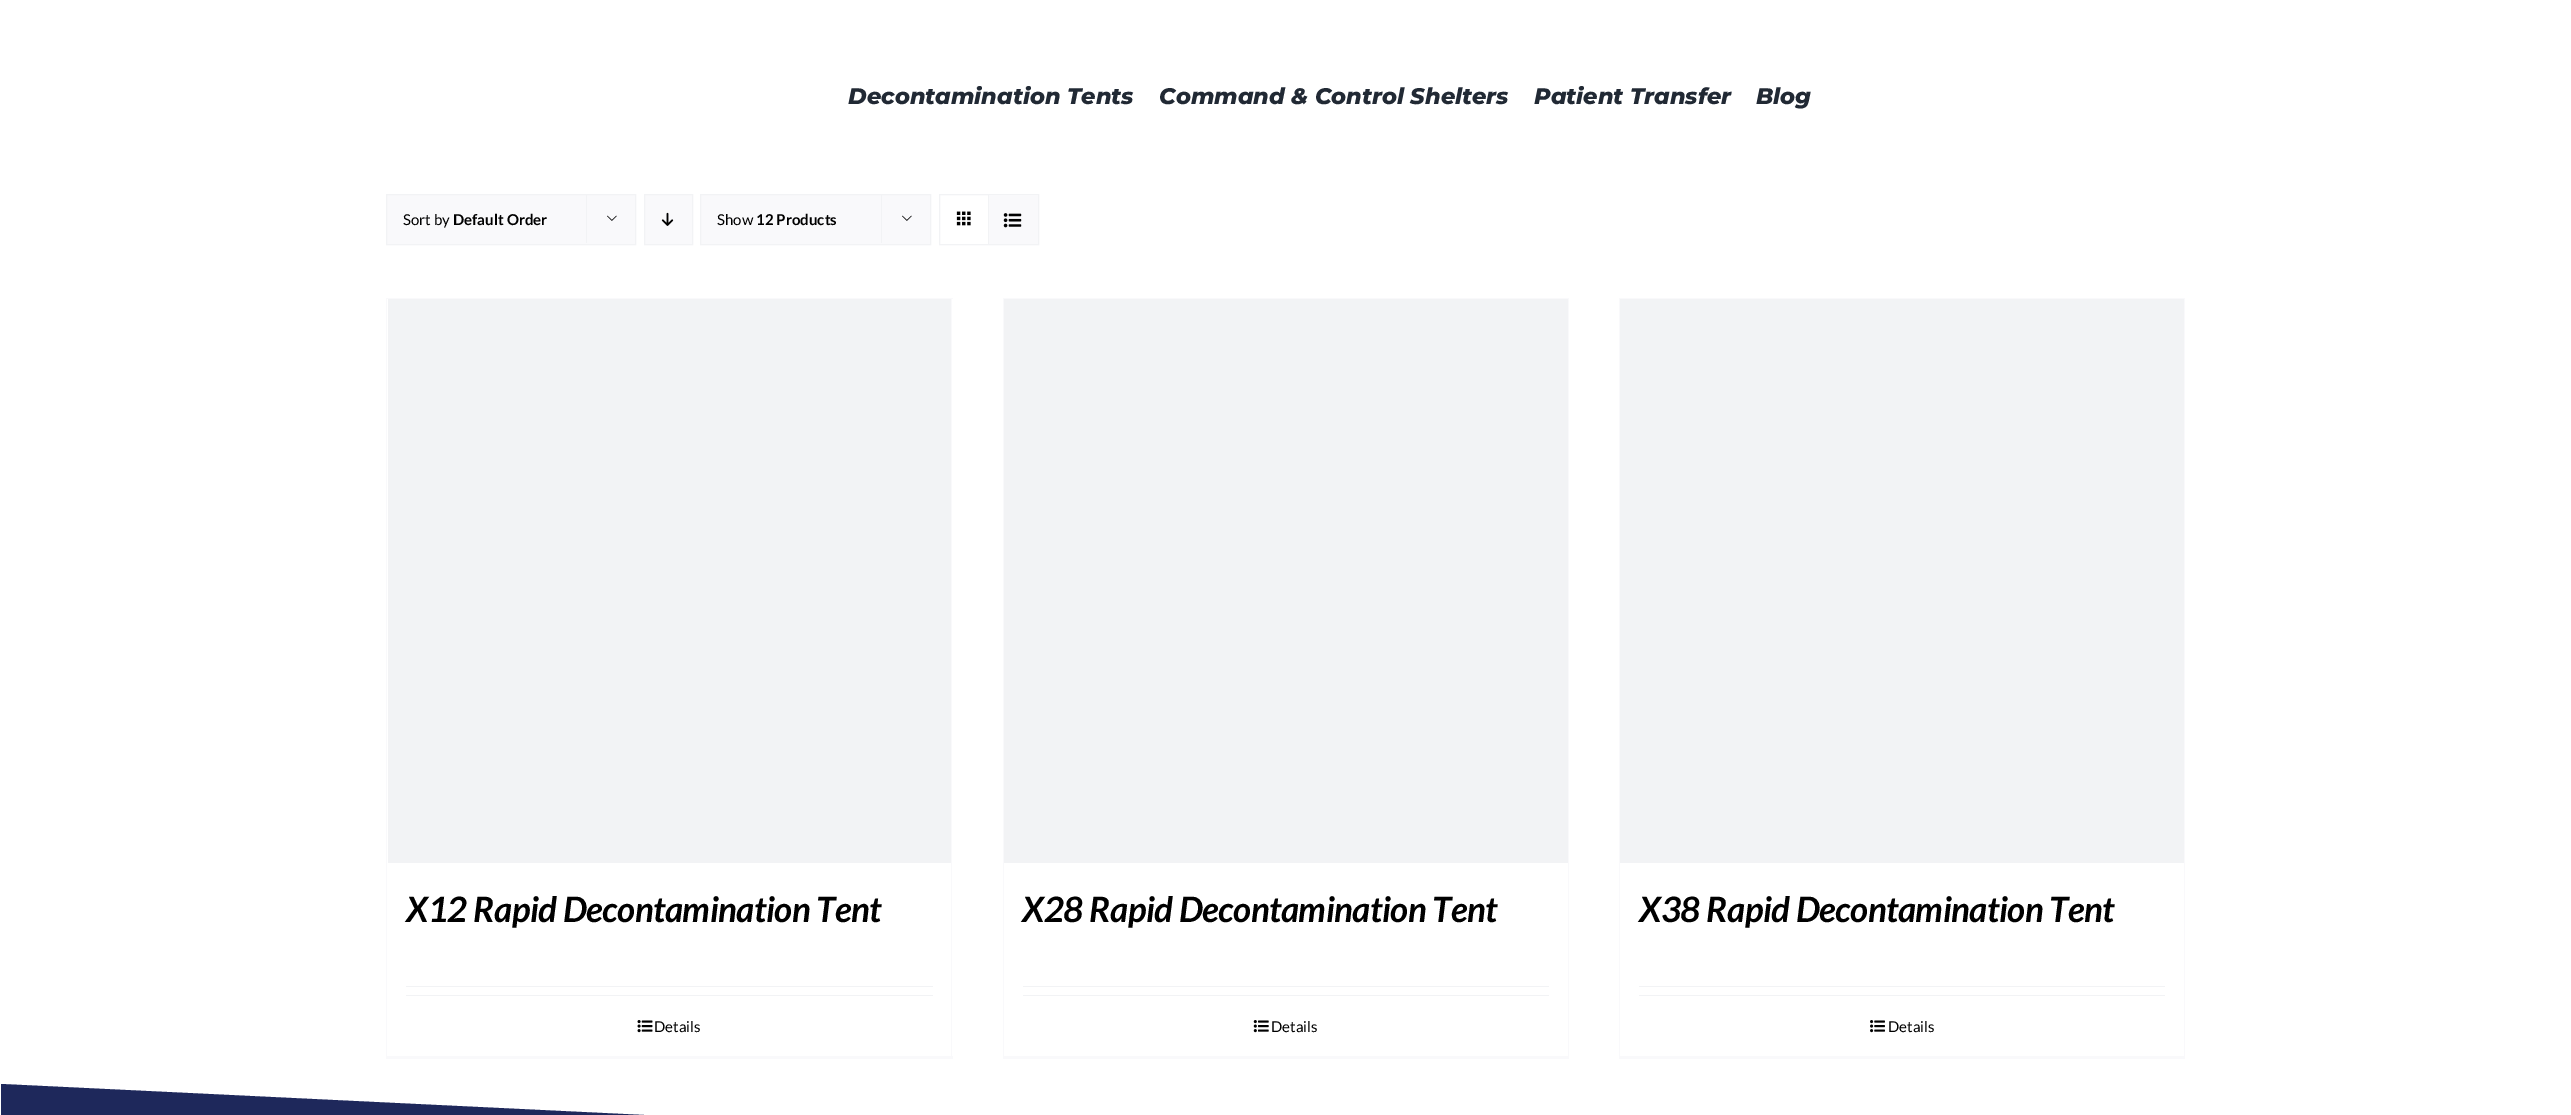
%!PS-Adobe-3.0
%%BoundingBox: 0 0 2571 1115
%%LanguageLevel: 3
%%Pages: 1
%%EndComments
%%BeginProlog
/drawimage { 5 dict begin { /h /w /y /x /name } { exch def } forall
  gsave x y translate w h scale
  w h 8 [w 0 0 h 0 0] name (r) file false 3 colorimage grestore end } def
%%EndProlog
%%BeginSetup
<< /PageSize [2571 1115] >> setpagedevice
%%EndSetup
%%Page: 1 1
0 1115 translate 1 -1 scale
4 setmiterlimit
1 setgray
0 0 2571 1115 rectfill
0.976 0.976 0.984 setrgbcolor
newpath 386.5 194.5 moveto 635.5 194.5 lineto 635.5 244.5 lineto 386.5 244.5 lineto closepath gsave fill grestore
0.949 0.953 0.961 setrgbcolor
stroke
586 194 1 49 rectfill
(images/1.raw) 607 215 10 6 drawimage
0.976 0.976 0.984 setrgbcolor
newpath 644.5 194.5 moveto 692.5 194.5 lineto 692.5 244.5 lineto 644.5 244.5 lineto closepath gsave fill grestore
0.949 0.953 0.961 setrgbcolor
stroke
(images/2.raw) 661 212 13 14 drawimage
0.976 0.976 0.984 setrgbcolor
newpath 700.5 194.5 moveto 930.5 194.5 lineto 930.5 244.5 lineto 700.5 244.5 lineto closepath gsave fill grestore
0.949 0.953 0.961 setrgbcolor
stroke
881 194 1 49 rectfill
(images/1.raw) 902 215 10 6 drawimage
939.5 194.5 99 50 rectstroke
988 195 1 49 rectfill
(images/3.raw) 956 211 15 15 drawimage
0.976 0.976 0.984 setrgbcolor
989 195 49 49 rectfill
(images/4.raw) 1003 213 19 15 drawimage
386 298 567 1 rectfill
951 298 1 761 rectfill
386 1056 567 3 rectfill
386 298 1 761 rectfill
0.949 0.953 0.961 setrgbcolor
388 299 563 564 rectfill
406 986 527 1 rectfill
406 995 527 1 rectfill
(images/5.raw) 637 1020 16 13 drawimage
0.976 0.976 0.984 setrgbcolor
1003 298 566 1 rectfill
1568 298 1 761 rectfill
1003 1056 566 3 rectfill
1003 298 1 761 rectfill
0.949 0.953 0.961 setrgbcolor
1004 299 564 564 rectfill
1023 986 526 1 rectfill
1023 995 526 1 rectfill
(images/6.raw) 1253 1020 16 13 drawimage
0.976 0.976 0.984 setrgbcolor
1619 298 566 1 rectfill
2184 298 1 761 rectfill
1619 1056 566 3 rectfill
1619 298 1 761 rectfill
0.949 0.953 0.961 setrgbcolor
1620 299 564 564 rectfill
1639 986 526 1 rectfill
1639 995 526 1 rectfill
(images/7.raw) 1870 1020 15 13 drawimage
0.118 0.157 0.357 setrgbcolor
newpath 1 1084 moveto 1 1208 lineto 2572 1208 lineto closepath fill
/Montserrat-ExtraBoldItalic [22.5 0 0 -22.5 0 0] selectfont
0.129 0.161 0.204 setrgbcolor
848 104 moveto (Decontamination Tents) show
1159 104 moveto (Command & Control Shelters) show
1534 104 moveto (Patient Transfer) show
1756 104 moveto (Blog) show
/Lato-Regular [15 0 0 -15 0 0] selectfont
0 setgray
403 225 moveto (Sort by) show
/Lato-Bold [15 0 0 -15 0 0] selectfont
453 225 moveto (Default Order) show
/Lato-Regular [15 0 0 -15 0 0] selectfont
717 225 moveto (Show) show
/Lato-Bold [15 0 0 -15 0 0] selectfont
756 225 moveto (12 Products) show
/Lato-BoldItalic [35 0 0 -35 0 0] selectfont
406 922 moveto -0.5 0 (X12 Rapid Decontamination Tent) ashow
/Lato-Regular [15 0 0 -15 0 0] selectfont
654 1032 moveto (Details) show
/Lato-BoldItalic [35 0 0 -35 0 0] selectfont
1022 922 moveto -0.5 0 (X28 Rapid Decontamination Tent) ashow
/Lato-Regular [15 0 0 -15 0 0] selectfont
1271 1032 moveto (Details) show
/Lato-BoldItalic [35 0 0 -35 0 0] selectfont
1639 922 moveto -0.5 0 (X38 Rapid Decontamination Tent) ashow
/Lato-Regular [15 0 0 -15 0 0] selectfont
1888 1032 moveto (Details) show
showpage
%%EOF
